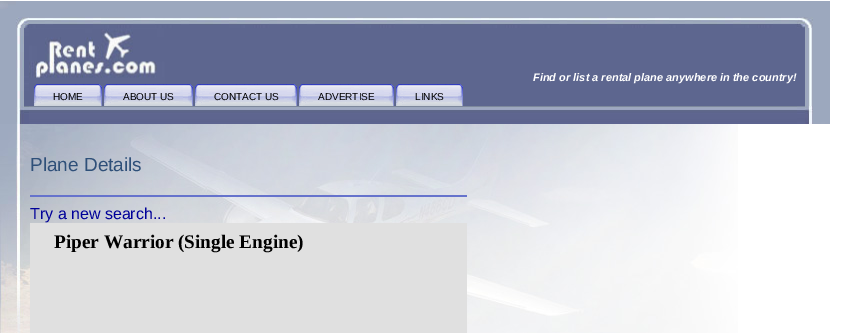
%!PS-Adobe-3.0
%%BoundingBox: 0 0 864 333
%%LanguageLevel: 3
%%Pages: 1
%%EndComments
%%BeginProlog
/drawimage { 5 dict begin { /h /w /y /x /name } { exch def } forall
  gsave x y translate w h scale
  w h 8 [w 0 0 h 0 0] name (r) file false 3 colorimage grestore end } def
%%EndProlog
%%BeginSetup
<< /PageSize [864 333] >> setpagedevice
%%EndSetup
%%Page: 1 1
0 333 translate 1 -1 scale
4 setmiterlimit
1 setgray
0 0 864 333 rectfill
(images/1.raw) 0 1 29 27 drawimage
(images/2.raw) 29 1 136 27 drawimage
(images/3.raw) 165 1 632 27 drawimage
(images/4.raw) 797 1 33 27 drawimage
(images/5.raw) 0 28 29 55 drawimage
(images/6.raw) 29 28 136 55 drawimage
0.365 0.4 0.561 setrgbcolor
165 28 632 55 rectfill
(images/7.raw) 797 28 33 55 drawimage
(images/8.raw) 0 83 29 23 drawimage
29 83 768 23 rectfill
(images/9.raw) 34 84 10 22 drawimage
(images/10.raw) 44 84 48 22 drawimage
(images/11.raw) 92 84 10 22 drawimage
(images/9.raw) 104 84 10 22 drawimage
(images/12.raw) 114 84 69 22 drawimage
(images/11.raw) 183 84 10 22 drawimage
(images/9.raw) 195 84 10 22 drawimage
(images/13.raw) 205 84 82 22 drawimage
(images/11.raw) 287 84 10 22 drawimage
(images/9.raw) 299 84 10 22 drawimage
(images/14.raw) 309 84 75 22 drawimage
(images/11.raw) 384 84 10 22 drawimage
(images/9.raw) 396 84 10 22 drawimage
(images/15.raw) 406 84 47 22 drawimage
(images/11.raw) 453 84 10 22 drawimage
(images/16.raw) 797 83 33 23 drawimage
(images/17.raw) 0 106 29 18 drawimage
(images/18.raw) 29 106 768 18 drawimage
(images/19.raw) 797 106 33 18 drawimage
(images/20.raw) 0 124 738 209 drawimage
0.4 0.451 0.8 setrgbcolor
30 195 437 2 rectfill
0.878 setgray
30 223 437 110 rectfill
/LiberationSans-BoldItalic [11 0 0 -11 0 0] selectfont
1 setgray
533 81 moveto (Find or list a rental plane anywhere in the country!) show
/LiberationSans-Regular [10 0 0 -10 0 0] selectfont
0 setgray
53 100 moveto (HOME) show
123 100 moveto (ABOUT US) show
214 100 moveto (CONTACT US) show
318 100 moveto (ADVERTISE) show
415 100 moveto (LINKS) show
/LiberationSans-Regular [19 0 0 -19 0 0] selectfont
0.184 0.314 0.475 setrgbcolor
30 171 moveto (Plane Details) show
/LiberationSans-Regular [16 0 0 -16 0 0] selectfont
0 0 0.6 setrgbcolor
30 219 moveto (Try a new search...) show
/LiberationSerif-Bold [19.25 0 0 -19.25 0 0] selectfont
0 setgray
54 248 moveto (Piper Warrior \(Single Engine\)) show
showpage
%%EOF
